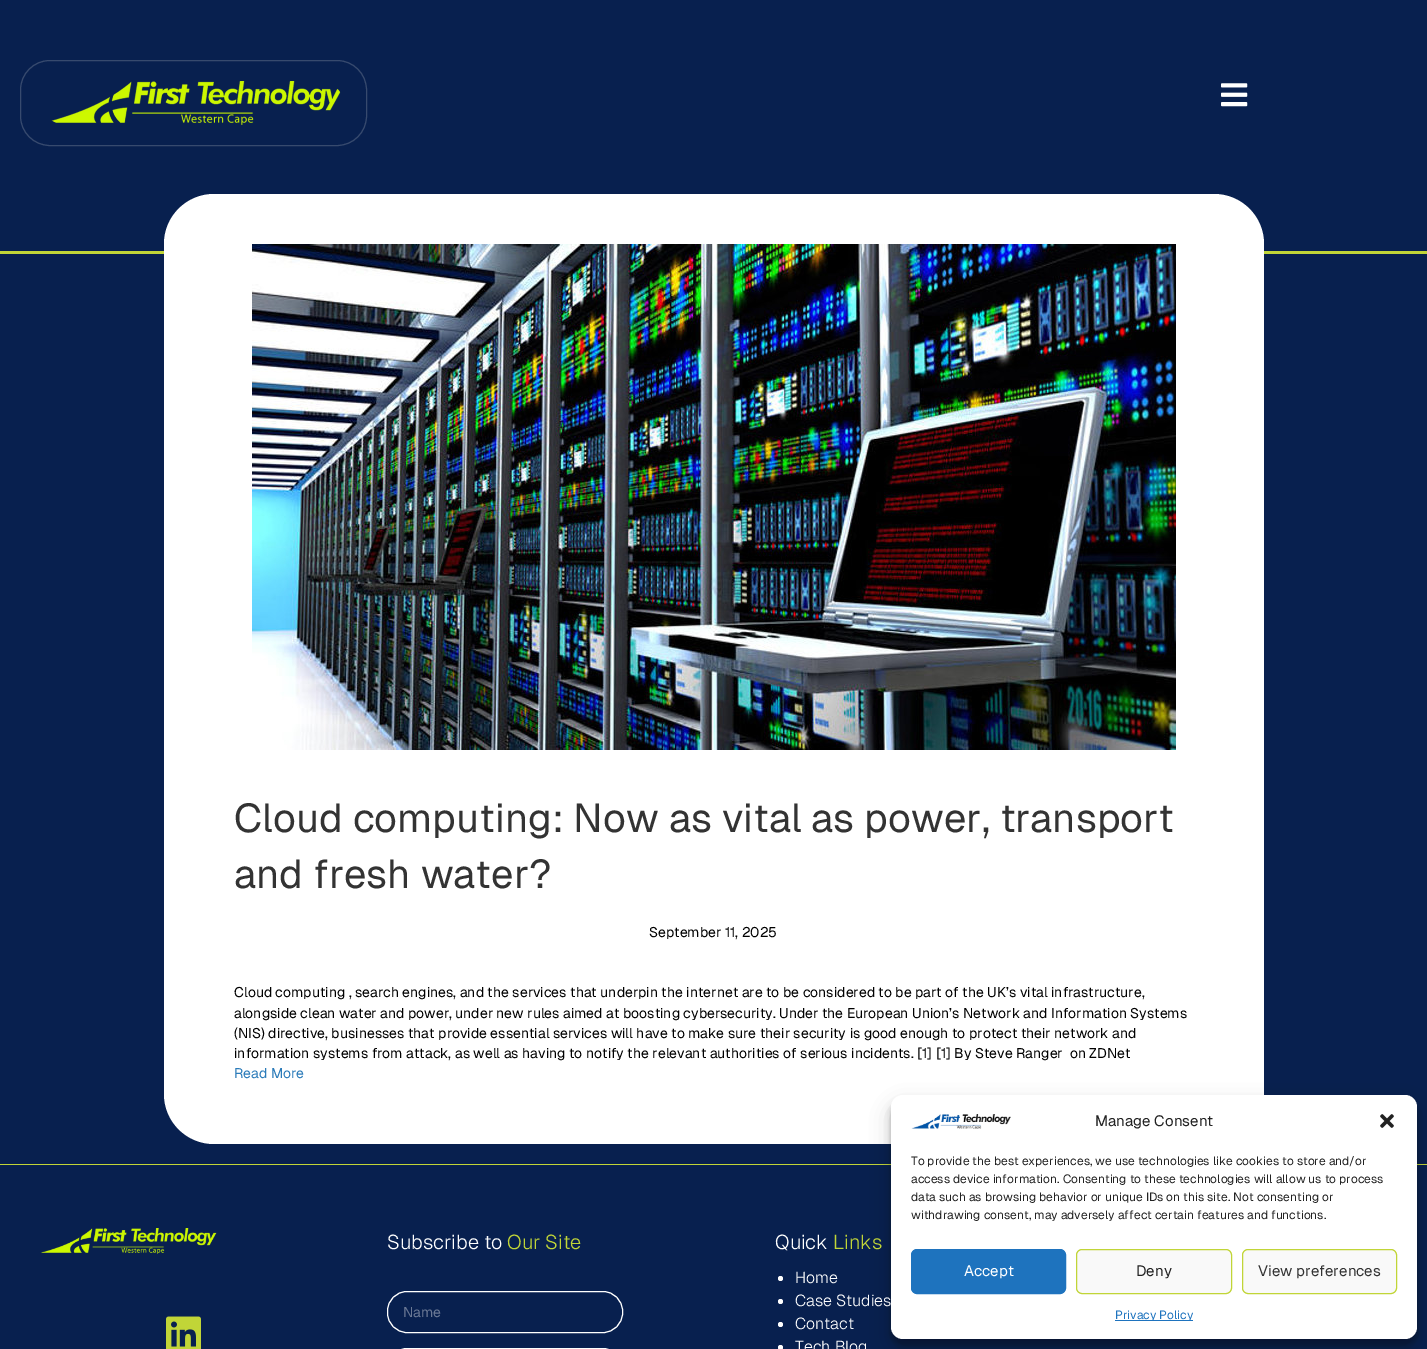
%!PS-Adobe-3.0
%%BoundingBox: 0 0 1427 1349
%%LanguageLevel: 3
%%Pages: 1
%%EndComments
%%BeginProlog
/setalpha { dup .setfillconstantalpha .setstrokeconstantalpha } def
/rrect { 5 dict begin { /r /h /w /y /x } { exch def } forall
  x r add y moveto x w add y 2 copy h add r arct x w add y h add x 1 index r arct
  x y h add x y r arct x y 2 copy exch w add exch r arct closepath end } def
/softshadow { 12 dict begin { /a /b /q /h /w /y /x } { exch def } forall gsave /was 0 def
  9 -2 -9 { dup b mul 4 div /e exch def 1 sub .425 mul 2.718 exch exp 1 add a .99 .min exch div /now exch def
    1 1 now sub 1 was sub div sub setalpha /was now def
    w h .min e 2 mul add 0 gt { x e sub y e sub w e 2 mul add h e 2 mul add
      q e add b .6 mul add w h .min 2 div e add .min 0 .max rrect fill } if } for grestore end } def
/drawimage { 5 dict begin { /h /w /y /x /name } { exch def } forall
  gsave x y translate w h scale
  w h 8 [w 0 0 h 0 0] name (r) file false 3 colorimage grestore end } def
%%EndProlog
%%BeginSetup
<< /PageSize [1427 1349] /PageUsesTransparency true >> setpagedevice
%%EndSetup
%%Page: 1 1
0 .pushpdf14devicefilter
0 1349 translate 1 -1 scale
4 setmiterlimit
0.031 0.125 0.31 setrgbcolor
0 0 1427 1349 rectfill
0.216 0.29 0.431 setrgbcolor
20.5 60.5 346 85 29.5 rrect stroke
(images/1.raw) 51 81 290 44 drawimage
(images/2.raw) 1221 83 27 24 drawimage
0.757 0.835 0.216 setrgbcolor
0 251 1427 3 rectfill
1 setgray
164 194 1100 950 50 rrect fill
(images/3.raw) 252 244 924 506 drawimage
0.757 0.835 0.216 setrgbcolor
0 1164 1427 1 rectfill
(images/4.raw) 41 1228 176 26 drawimage
(images/5.raw) 166 1316 35 33 drawimage
1 setgray
387.5 1291.5 235 41 19.5 rrect stroke
387.5 1348.5 235 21 19.5 rrect stroke
newpath 780.5 1278.5 2.5 0 360 arc closepath fill
newpath 780.5 1301.5 2.5 0 360 arc closepath fill
newpath 780.5 1324.5 2.5 0 360 arc closepath fill
newpath 780.5 1347.5 2.5 0 360 arc closepath fill
0 setgray
891 1101 526 244 12 3 0.23 softshadow
891 1105 526 244 12 10 0.19 softshadow
1 setgray
891 1095 526 244 12 rrect fill
(images/6.raw) 911 1114 100 15 drawimage
(images/7.raw) 1380 1114 14 14 drawimage
0.118 0.451 0.745 setrgbcolor
911.5 1249.5 154 44 5.5 rrect gsave fill grestore
stroke
0.976 setgray
1076.5 1249.5 155 44 5.5 rrect gsave fill grestore
0.757 0.835 0.216 setrgbcolor
stroke
0.976 setgray
1242.5 1249.5 154 44 5.5 rrect gsave fill grestore
0.757 0.835 0.216 setrgbcolor
stroke
0.118 0.451 0.745 setrgbcolor
1115 1320 78 1 rectfill
/Geist-Regular [40 0 0 -40 0 0] selectfont
0.2 setgray
234 832 moveto (Cloud computing: Now as vital as power, transport) show
234 888 moveto (and fresh water?) show
/Geist-Regular [14 0 0 -14 0 0] selectfont
0 setgray
649 937 moveto (September 11, 2025) show
234 997 moveto (Cloud computing , search engines, and the services that underpin the internet are to be considered to be part of the UK’s vital infrastructure,) show
234 1018 moveto (alongside clean water and power, under new rules aimed at boosting cybersecurity. Under the European Union’s Network and Information Systems) show
234 1038 moveto (\(NIS\) directive, businesses that provide essential services will have to make sure their security is good enough to protect their network and) show
234 1058 moveto (information systems from attack, as well as having to notify the relevant authorities of serious incidents. [1] [1] By Steve Ranger  on ZDNet) show
0.169 0.482 0.725 setrgbcolor
234 1078 moveto (Read More) show
/Geist-Light [20 0 0 -20 0 0] selectfont
1 setgray
387 1249 moveto (Subscribe to) show
0.757 0.835 0.216 setrgbcolor
507 1249 moveto (Our Site) show
/Geist-Regular [14 0 0 -14 0 0] selectfont
0.42 0.475 0.584 setrgbcolor
403 1317 moveto (Name) show
/Geist-Light [20 0 0 -20 0 0] selectfont
1 setgray
775 1249 moveto (Quick) show
0.757 0.835 0.216 setrgbcolor
833 1249 moveto (Links) show
/Geist-Light [16 0 0 -16 0 0] selectfont
1 setgray
795 1283 moveto (Home) show
795 1306 moveto (Case Studies) show
795 1329 moveto (Contact) show
795 1352 moveto (Tech Blog) show
/Geist-Regular [15 0 0 -15 0 0] selectfont
0.133 setgray
1095 1126 moveto (Manage Consent) show
/Geist-Regular [12 0 0 -12 0 0] selectfont
911 1165 moveto (To provide the best experiences, we use technologies like cookies to store and/or) show
911 1183 moveto (access device information. Consenting to these technologies will allow us to process) show
911 1201 moveto (data such as browsing behavior or unique IDs on this site. Not consenting or) show
911 1219 moveto (withdrawing consent, may adversely affect certain features and functions.) show
/Geist-Regular [15 0 0 -15 0 0] selectfont
1 setgray
964 1276 moveto (Accept) show
0.133 setgray
1136 1276 moveto (Deny) show
0.2 setgray
1258 1276 moveto (View preferences) show
/Geist-Regular [12 0 0 -12 0 0] selectfont
0.118 0.451 0.745 setrgbcolor
1115 1319 moveto (Privacy Policy) show
.poppdf14devicefilter showpage
%%EOF
